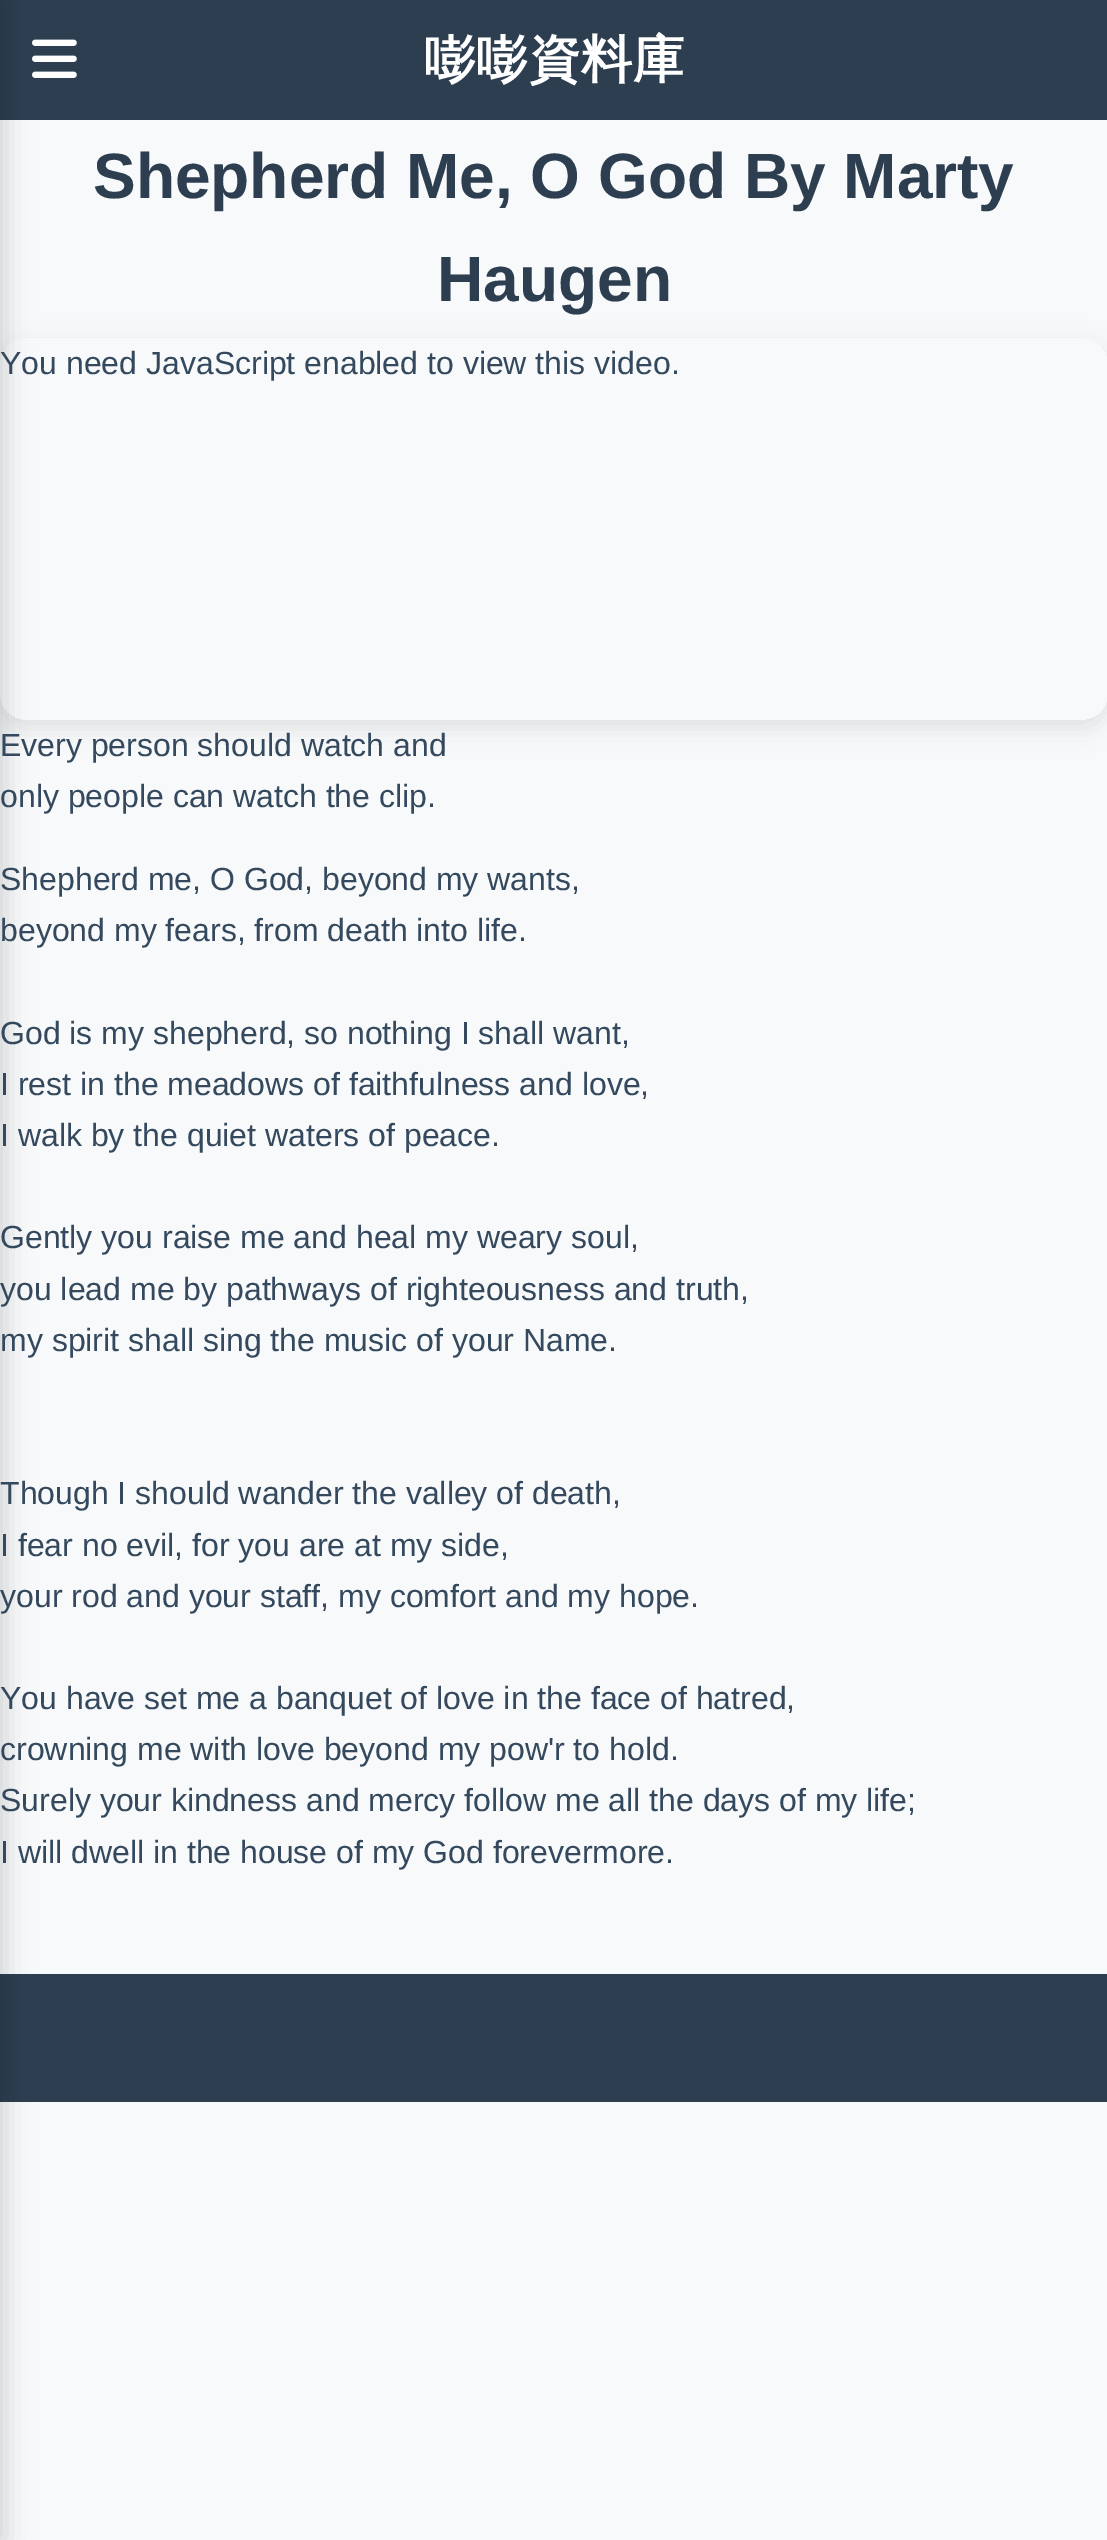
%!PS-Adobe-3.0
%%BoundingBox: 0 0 1107 2540
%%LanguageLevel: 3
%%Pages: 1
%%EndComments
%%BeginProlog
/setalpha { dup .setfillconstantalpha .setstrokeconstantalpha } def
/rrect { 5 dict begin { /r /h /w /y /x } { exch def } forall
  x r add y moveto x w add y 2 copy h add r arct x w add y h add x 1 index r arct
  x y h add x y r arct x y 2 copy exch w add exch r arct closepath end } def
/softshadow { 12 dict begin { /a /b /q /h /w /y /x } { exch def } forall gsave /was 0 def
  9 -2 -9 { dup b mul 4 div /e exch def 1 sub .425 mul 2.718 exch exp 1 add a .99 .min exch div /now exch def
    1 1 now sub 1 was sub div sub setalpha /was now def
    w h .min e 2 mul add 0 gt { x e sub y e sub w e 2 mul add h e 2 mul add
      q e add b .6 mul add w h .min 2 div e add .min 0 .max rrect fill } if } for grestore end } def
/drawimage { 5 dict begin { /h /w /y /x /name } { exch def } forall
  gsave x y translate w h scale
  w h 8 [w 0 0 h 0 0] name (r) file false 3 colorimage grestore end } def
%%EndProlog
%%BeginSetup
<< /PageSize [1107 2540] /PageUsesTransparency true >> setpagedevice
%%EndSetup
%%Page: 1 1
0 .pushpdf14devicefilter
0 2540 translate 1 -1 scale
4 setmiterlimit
0.973 0.976 0.98 setrgbcolor
0 0 1107 2540 rectfill
0.173 0.243 0.314 setrgbcolor
0 0 1107 120 rectfill
(images/1.raw) 32 39 45 39 drawimage
0 1974 1107 128 rectfill
0 setgray
-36 0 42 2540 0 12 0.15 softshadow
gsave
newpath 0 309 moveto 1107 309 lineto 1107 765 lineto 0 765 lineto closepath 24 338 moveto 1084 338 lineto 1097.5 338 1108 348.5 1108 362 curveto 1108 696 lineto 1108 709.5 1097.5 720 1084 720 curveto 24 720 lineto 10.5 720 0 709.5 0 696 curveto 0 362 lineto 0 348.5 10.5 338 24 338 curveto closepath eoclip newpath
0 346 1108 382 24 12 0.1 softshadow
grestore
/WenQuanYiZenHei-Bold [51.25 0 0 -51.25 0 0] selectfont
1 setgray
424 77 moveto 1 0 (嘭嘭資料庫) ashow
/LiberationSans-Bold [64 0 0 -64 0 0] selectfont
0.173 0.243 0.314 setrgbcolor
93 198 moveto (Shepherd Me, O God By Marty) show
437 301 moveto (Haugen) show
gsave
0 338 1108 382 24 rrect clip newpath
/LiberationSans-Regular [32 0 0 -32 0 0] selectfont
0.204 0.286 0.369 setrgbcolor
0 374 moveto (You need JavaScript enabled to view this video.) show
grestore
/LiberationSans-Regular [32 0 0 -32 0 0] selectfont
0.204 0.286 0.369 setrgbcolor
0 756 moveto (Every person should watch and) show
0 807 moveto (only people can watch the clip.) show
0 890 moveto (Shepherd me, O God, beyond my wants,) show
0 941 moveto (beyond my fears, from death into life.) show
0 1044 moveto (God is my shepherd, so nothing I shall want,) show
0 1095 moveto (I rest in the meadows of faithfulness and love,) show
0 1146 moveto (I walk by the quiet waters of peace.) show
0 1248 moveto (Gently you raise me and heal my weary soul,) show
0 1300 moveto (you lead me by pathways of righteousness and truth,) show
0 1351 moveto (my spirit shall sing the music of your Name.) show
0 1504 moveto (Though I should wander the valley of death,) show
0 1556 moveto (I fear no evil, for you are at my side,) show
0 1607 moveto (your rod and your staff, my comfort and my hope.) show
0 1709 moveto (You have set me a banquet of love in the face of hatred,) show
0 1760 moveto (crowning me with love beyond my pow'r to hold.) show
0 1811 moveto (Surely your kindness and mercy follow me all the days of my life;) show
0 1863 moveto (I will dwell in the house of my God forevermore.) show
.poppdf14devicefilter showpage
%%EOF
